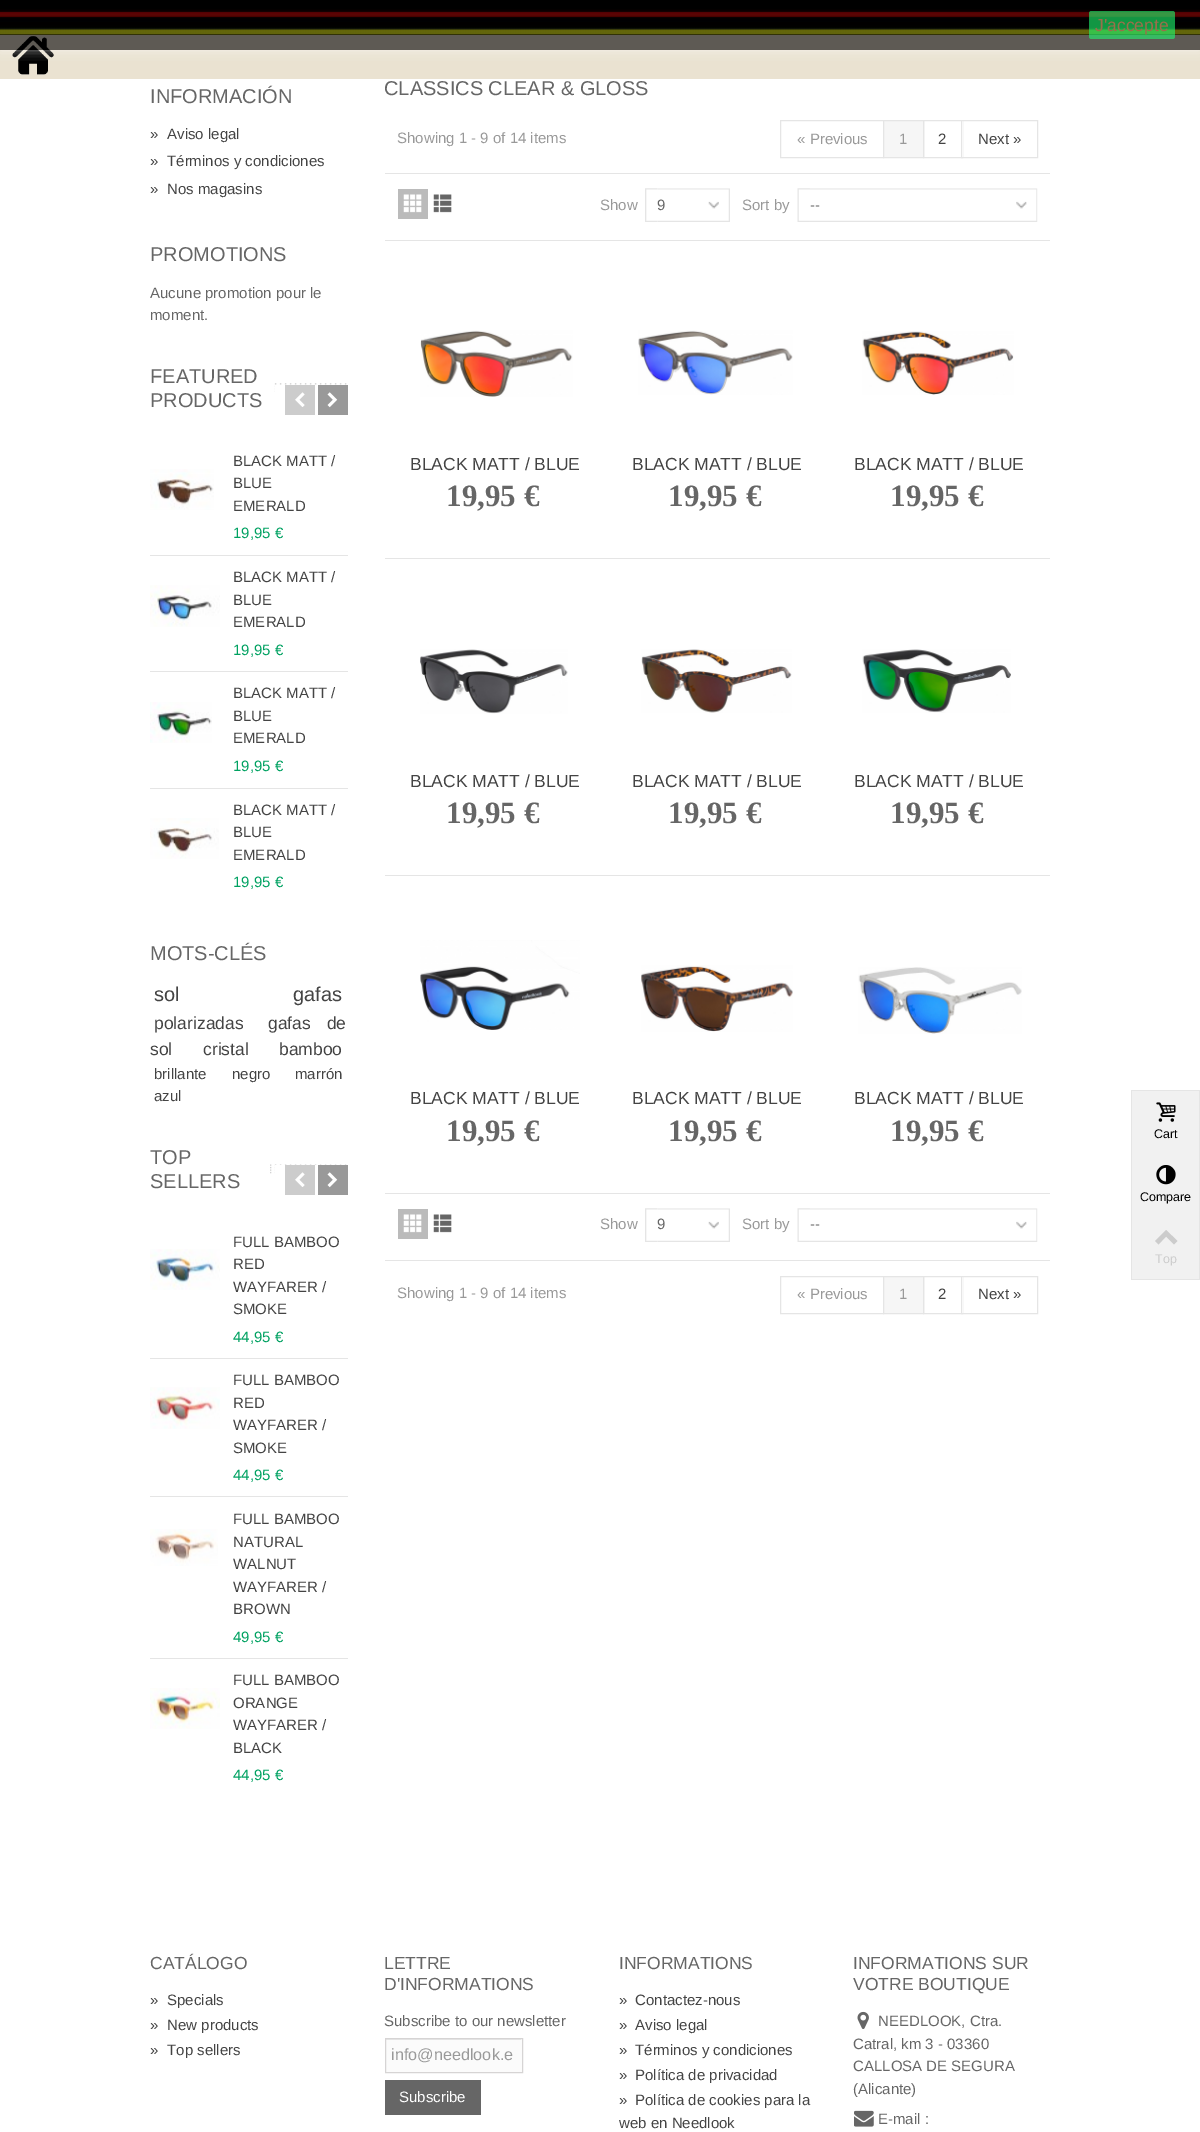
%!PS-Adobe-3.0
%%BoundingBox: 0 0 1200 2132
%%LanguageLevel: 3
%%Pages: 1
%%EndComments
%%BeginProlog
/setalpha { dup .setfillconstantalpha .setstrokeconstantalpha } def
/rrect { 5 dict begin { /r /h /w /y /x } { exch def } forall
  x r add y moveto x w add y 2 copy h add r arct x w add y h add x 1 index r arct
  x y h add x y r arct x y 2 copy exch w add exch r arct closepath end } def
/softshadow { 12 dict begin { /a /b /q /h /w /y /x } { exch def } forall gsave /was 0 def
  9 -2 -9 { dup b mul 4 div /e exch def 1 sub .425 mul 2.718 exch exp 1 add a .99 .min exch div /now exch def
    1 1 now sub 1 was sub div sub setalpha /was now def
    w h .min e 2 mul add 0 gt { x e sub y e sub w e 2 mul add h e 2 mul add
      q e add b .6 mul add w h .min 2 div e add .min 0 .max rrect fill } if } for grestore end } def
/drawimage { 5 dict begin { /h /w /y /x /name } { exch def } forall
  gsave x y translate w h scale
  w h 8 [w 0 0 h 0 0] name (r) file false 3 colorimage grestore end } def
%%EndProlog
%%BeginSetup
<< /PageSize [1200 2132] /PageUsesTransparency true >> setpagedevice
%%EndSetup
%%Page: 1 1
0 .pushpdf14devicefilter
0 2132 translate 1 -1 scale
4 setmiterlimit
1 setgray
0 0 1200 2132 rectfill
0.918 0.886 0.82 setrgbcolor
0 35 1200 44 rectfill
0 setgray
0 0 1200 35 rectfill
(images/1.raw) 0 9 1200 26 drawimage
(images/2.raw) 12 36 42 39 drawimage
gsave
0 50 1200 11 rectclip
1 setgray
0 0 1200 50 0 6 0.6 softshadow
grestore
0.6 setalpha
0 9 1200 41 rectfill
0.118 0.98 0.435 setrgbcolor
1089 11 86 28 2.5 rrect fill
1 setalpha
0.984 setgray
386 2039 136 33 rectfill
0.91 setgray
386 2039 135 1 rectfill
0.839 0.831 0.831 setrgbcolor
385.5 2038.5 137 34 rectstroke
0.4 setgray
385 2080 96 35 rectfill
(images/3.raw) 857 2011 12 18 drawimage
(images/4.raw) 854 2110 20 17 drawimage
(images/5.raw) 274 383 73 9 drawimage
1 setgray
275 385 42 7 rectfill
0.8 setgray
285 385 30 30 rectfill
(images/6.raw) 295 392 10 15 drawimage
0.6 setgray
318 385 30 30 rectfill
(images/7.raw) 327 392 11 16 drawimage
0.898 setgray
150 555 198 1 rectfill
(images/8.raw) 150 469 64 41 drawimage
150 671 198 1 rectfill
(images/9.raw) 150 585 70 42 drawimage
150 788 198 1 rectfill
(images/10.raw) 150 702 62 41 drawimage
(images/11.raw) 150 818 69 41 drawimage
(images/12.raw) 270 1164 77 10 drawimage
1 setgray
275 1165 42 9 rectfill
0.8 setgray
285 1165 30 30 rectfill
(images/6.raw) 295 1172 10 15 drawimage
0.6 setgray
318 1165 30 30 rectfill
(images/7.raw) 327 1172 11 16 drawimage
0.898 setgray
150 1358 198 1 rectfill
(images/13.raw) 150 1249 70 41 drawimage
150 1496 198 1 rectfill
(images/14.raw) 150 1387 70 42 drawimage
150 1658 198 1 rectfill
(images/15.raw) 150 1529 68 37 drawimage
(images/16.raw) 150 1688 70 41 drawimage
385 173 665 1 rectfill
780.5 120.5 103 37 rectstroke
923.5 120.5 39 37 rectstroke
0.965 setgray
newpath 883.5 120.5 moveto 923.5 120.5 lineto 923.5 157.5 lineto 883.5 157.5 lineto closepath gsave fill grestore
0.898 setgray
stroke
1 setgray
962 121 1 36 rectfill
0.898 setgray
961.5 120.5 76 37 rectstroke
385 240 665 1 rectfill
0.733 setgray
398 189 30 30 rectfill
(images/17.raw) 403 194 19 19 drawimage
(images/18.raw) 433 194 19 19 drawimage
(images/19.raw) 645 188 13 34 drawimage
(images/20.raw) 657 188 73 34 drawimage
(images/21.raw) 797 188 13 34 drawimage
(images/22.raw) 810 188 228 34 drawimage
(images/23.raw) 420 330 153 67 drawimage
(images/24.raw) 638 330 155 65 drawimage
(images/25.raw) 862 331 152 64 drawimage
0.898 setgray
385 558 665 1 rectfill
(images/26.raw) 420 649 148 65 drawimage
(images/27.raw) 641 649 151 64 drawimage
(images/28.raw) 862 649 149 64 drawimage
385 875 665 1 rectfill
(images/29.raw) 420 940 160 90 drawimage
(images/30.raw) 641 965 152 67 drawimage
(images/31.raw) 858 967 164 67 drawimage
385 1193 665 1 rectfill
0.733 setgray
398 1209 30 30 rectfill
(images/17.raw) 403 1214 19 19 drawimage
(images/18.raw) 433 1214 19 19 drawimage
(images/19.raw) 645 1208 13 34 drawimage
(images/20.raw) 657 1208 73 34 drawimage
(images/21.raw) 797 1208 13 34 drawimage
(images/22.raw) 810 1208 228 34 drawimage
0.898 setgray
385 1260 665 1 rectfill
780.5 1276.5 103 37 rectstroke
923.5 1276.5 39 37 rectstroke
0.965 setgray
newpath 883.5 1276.5 moveto 923.5 1276.5 lineto 923.5 1313.5 lineto 883.5 1313.5 lineto closepath gsave fill grestore
0.898 setgray
stroke
1 setgray
962 1277 1 36 rectfill
0.898 setgray
961.5 1276.5 76 37 rectstroke
0.945 setgray
1132 1091 67 188 rectfill
0.898 setgray
1131 1090 69 1 rectfill
1199 1090 1 190 rectfill
1131 1279 69 1 rectfill
1131 1091 1 188 rectfill
(images/32.raw) 1156 1102 20 20 drawimage
(images/33.raw) 1156 1165 20 20 drawimage
0.8 setgray
newpath 1155 1241 moveto 1166 1230 lineto 1177.5 1241 lineto 1174 1244.5 lineto 1166 1236.5 lineto 1158.5 1244.5 lineto closepath fill
/LiberationSans-Regular [17.5 0 0 -17.5 0 0] selectfont
0.6 0.435 0.29 setrgbcolor
1095 31 moveto (J'accepte) show
0.4 setgray
150 1969 moveto (CATÁLOGO) show
/LiberationSans-Regular [15 0 0 -15 0 0] selectfont
0.267 setgray
150 2005 moveto (») show
167 2005 moveto (Specials) show
150 2030 moveto (») show
167 2030 moveto (New products) show
150 2055 moveto (») show
167 2055 moveto (Top sellers) show
/LiberationSans-Regular [17.5 0 0 -17.5 0 0] selectfont
0.4 setgray
384 1969 moveto (LETTRE) show
384 1990 moveto (D'INFORMATIONS) show
/LiberationSans-Regular [15 0 0 -15 0 0] selectfont
384 2026 moveto (Subscribe to our newsletter) show
/LiberationSans-Regular [16.25 0 0 -16.25 0 0] selectfont
0.6 setgray
391 2060 moveto (info@needlook.e) show
/LiberationSans-Regular [15 0 0 -15 0 0] selectfont
1 setgray
399 2102 moveto (Subscribe) show
/LiberationSans-Regular [17.5 0 0 -17.5 0 0] selectfont
0.4 setgray
619 1969 moveto (INFORMATIONS) show
/LiberationSans-Regular [15 0 0 -15 0 0] selectfont
0.267 setgray
619 2005 moveto (») show
635 2005 moveto (Contactez-nous) show
619 2030 moveto (») show
635 2030 moveto (Aviso legal) show
619 2055 moveto (») show
635 2055 moveto (Términos y condiciones) show
619 2080 moveto (») show
635 2080 moveto (Política de privacidad) show
619 2105 moveto (») show
635 2105 moveto (Política de cookies para la) show
619 2128 moveto (web en Needlook) show
/LiberationSans-Regular [17.5 0 0 -17.5 0 0] selectfont
0.4 setgray
853 1969 moveto (INFORMATIONS SUR) show
853 1990 moveto (VOTRE BOUTIQUE) show
/LiberationSans-Regular [15 0 0 -15 0 0] selectfont
878 2026 moveto (NEEDLOOK, Ctra.) show
853 2049 moveto (Catral, km 3 - 03360) show
853 2071 moveto (CALLOSA DE SEGURA) show
853 2094 moveto (\(Alicante\)) show
878 2124 moveto (E-mail :) show
/LiberationSans-Regular [20 0 0 -20 0 0] selectfont
150 103 moveto (INFORMACIÓN) show
/LiberationSans-Regular [15 0 0 -15 0 0] selectfont
0.267 setgray
150 139 moveto (») show
167 139 moveto (Aviso legal) show
150 166 moveto (») show
167 166 moveto (Términos y condiciones) show
150 194 moveto (») show
167 194 moveto (Nos magasins) show
/LiberationSans-Regular [20 0 0 -20 0 0] selectfont
0.4 setgray
150 261 moveto (PROMOTIONS) show
/LiberationSans-Regular [15 0 0 -15 0 0] selectfont
150 298 moveto (Aucune promotion pour le) show
150 320 moveto (moment.) show
/LiberationSans-Regular [20 0 0 -20 0 0] selectfont
150 383 moveto (FEATURED) show
150 407 moveto (PRODUCTS) show
/LiberationSans-Regular [15 0 0 -15 0 0] selectfont
0.267 setgray
233 466 moveto (BLACK MATT /) show
233 488 moveto (BLUE) show
233 511 moveto (EMERALD) show
0 0.631 0.38 setrgbcolor
233 538 moveto (19,95 €) show
0.267 setgray
233 582 moveto (BLACK MATT /) show
233 605 moveto (BLUE) show
233 627 moveto (EMERALD) show
0 0.631 0.38 setrgbcolor
233 655 moveto (19,95 €) show
0.267 setgray
233 698 moveto (BLACK MATT /) show
233 721 moveto (BLUE) show
233 743 moveto (EMERALD) show
0 0.631 0.38 setrgbcolor
233 771 moveto (19,95 €) show
0.267 setgray
233 815 moveto (BLACK MATT /) show
233 837 moveto (BLUE) show
233 860 moveto (EMERALD) show
0 0.631 0.38 setrgbcolor
233 887 moveto (19,95 €) show
/LiberationSans-Regular [20 0 0 -20 0 0] selectfont
0.4 setgray
150 960 moveto (MOTS-CLÉS) show
0.267 setgray
154 1001 moveto (sol) show
293 1001 moveto (gafas) show
/LiberationSans-Regular [17.5 0 0 -17.5 0 0] selectfont
154 1029 moveto (polarizadas) show
268 1029 moveto 11 0 32 (gafas de) widthshow
150 1055 moveto (sol) show
203 1055 moveto (cristal) show
279 1055 moveto (bamboo) show
/LiberationSans-Regular [15 0 0 -15 0 0] selectfont
154 1079 moveto (brillante) show
232 1079 moveto (negro) show
295 1079 moveto (marrón) show
154 1101 moveto (azul) show
/LiberationSans-Regular [20 0 0 -20 0 0] selectfont
0.4 setgray
150 1164 moveto (TOP) show
150 1188 moveto (SELLERS) show
/LiberationSans-Regular [15 0 0 -15 0 0] selectfont
0.267 setgray
233 1247 moveto (FULL BAMBOO) show
233 1269 moveto (RED) show
233 1292 moveto (WAYFARER /) show
233 1314 moveto (SMOKE) show
0 0.631 0.38 setrgbcolor
233 1342 moveto (44,95 €) show
0.267 setgray
233 1385 moveto (FULL BAMBOO) show
233 1408 moveto (RED) show
233 1430 moveto (WAYFARER /) show
233 1453 moveto (SMOKE) show
0 0.631 0.38 setrgbcolor
233 1480 moveto (44,95 €) show
0.267 setgray
233 1524 moveto (FULL BAMBOO) show
233 1547 moveto (NATURAL) show
233 1569 moveto (WALNUT) show
233 1592 moveto (WAYFARER /) show
233 1614 moveto (BROWN) show
0 0.631 0.38 setrgbcolor
233 1642 moveto (49,95 €) show
0.267 setgray
233 1685 moveto (FULL BAMBOO) show
233 1708 moveto (ORANGE) show
233 1730 moveto (WAYFARER /) show
233 1753 moveto (BLACK) show
0 0.631 0.38 setrgbcolor
233 1780 moveto (44,95 €) show
/LiberationSans-Regular [20 0 0 -20 0 0] selectfont
0.4 setgray
384 95 moveto (CLASSICS CLEAR & GLOSS) show
/LiberationSans-Regular [15 0 0 -15 0 0] selectfont
0.6 setgray
397 143 moveto (Showing 1 - 9 of 14 items) show
797 144 moveto (« Previous) show
899 144 moveto (1) show
0.267 setgray
938 144 moveto (2) show
978 144 moveto (Next ») show
0.6 setgray
600 210 moveto (Show) show
0.4 setgray
657 210 moveto (9) show
0.6 setgray
742 210 moveto (Sort by) show
0.4 setgray
810 210 moveto (--) show
/LiberationSans-Regular [17.5 0 0 -17.5 0 0] selectfont
0.267 setgray
410 470 moveto (BLACK MATT / BLUE) show
/LiberationSerif-Bold [31 0 0 -31 0 0] selectfont
0.4 setgray
446 506 moveto (19,95 €) show
/LiberationSans-Regular [17.5 0 0 -17.5 0 0] selectfont
0.267 setgray
632 470 moveto (BLACK MATT / BLUE) show
/LiberationSerif-Bold [31 0 0 -31 0 0] selectfont
0.4 setgray
668 506 moveto (19,95 €) show
/LiberationSans-Regular [17.5 0 0 -17.5 0 0] selectfont
0.267 setgray
854 470 moveto (BLACK MATT / BLUE) show
/LiberationSerif-Bold [31 0 0 -31 0 0] selectfont
0.4 setgray
890 506 moveto (19,95 €) show
/LiberationSans-Regular [17.5 0 0 -17.5 0 0] selectfont
0.267 setgray
410 787 moveto (BLACK MATT / BLUE) show
/LiberationSerif-Bold [31 0 0 -31 0 0] selectfont
0.4 setgray
446 823 moveto (19,95 €) show
/LiberationSans-Regular [17.5 0 0 -17.5 0 0] selectfont
0.267 setgray
632 787 moveto (BLACK MATT / BLUE) show
/LiberationSerif-Bold [31 0 0 -31 0 0] selectfont
0.4 setgray
668 823 moveto (19,95 €) show
/LiberationSans-Regular [17.5 0 0 -17.5 0 0] selectfont
0.267 setgray
854 787 moveto (BLACK MATT / BLUE) show
/LiberationSerif-Bold [31 0 0 -31 0 0] selectfont
0.4 setgray
890 823 moveto (19,95 €) show
/LiberationSans-Regular [17.5 0 0 -17.5 0 0] selectfont
0.267 setgray
410 1104 moveto (BLACK MATT / BLUE) show
/LiberationSerif-Bold [31 0 0 -31 0 0] selectfont
0.4 setgray
446 1141 moveto (19,95 €) show
/LiberationSans-Regular [17.5 0 0 -17.5 0 0] selectfont
0.267 setgray
632 1104 moveto (BLACK MATT / BLUE) show
/LiberationSerif-Bold [31 0 0 -31 0 0] selectfont
0.4 setgray
668 1141 moveto (19,95 €) show
/LiberationSans-Regular [17.5 0 0 -17.5 0 0] selectfont
0.267 setgray
854 1104 moveto (BLACK MATT / BLUE) show
/LiberationSerif-Bold [31 0 0 -31 0 0] selectfont
0.4 setgray
890 1141 moveto (19,95 €) show
/LiberationSans-Regular [15 0 0 -15 0 0] selectfont
0.6 setgray
600 1229 moveto (Show) show
0.4 setgray
657 1229 moveto (9) show
0.6 setgray
742 1229 moveto (Sort by) show
0.4 setgray
810 1229 moveto (--) show
0.6 setgray
397 1298 moveto (Showing 1 - 9 of 14 items) show
797 1299 moveto (« Previous) show
899 1299 moveto (1) show
0.267 setgray
938 1299 moveto (2) show
978 1299 moveto (Next ») show
/LiberationSans-Regular [12.5 0 0 -12.5 0 0] selectfont
0 setgray
1154 1138 moveto (Cart) show
1140 1201 moveto (Compare) show
0.8 setgray
1155 1263 moveto (Top) show
.poppdf14devicefilter showpage
%%EOF
